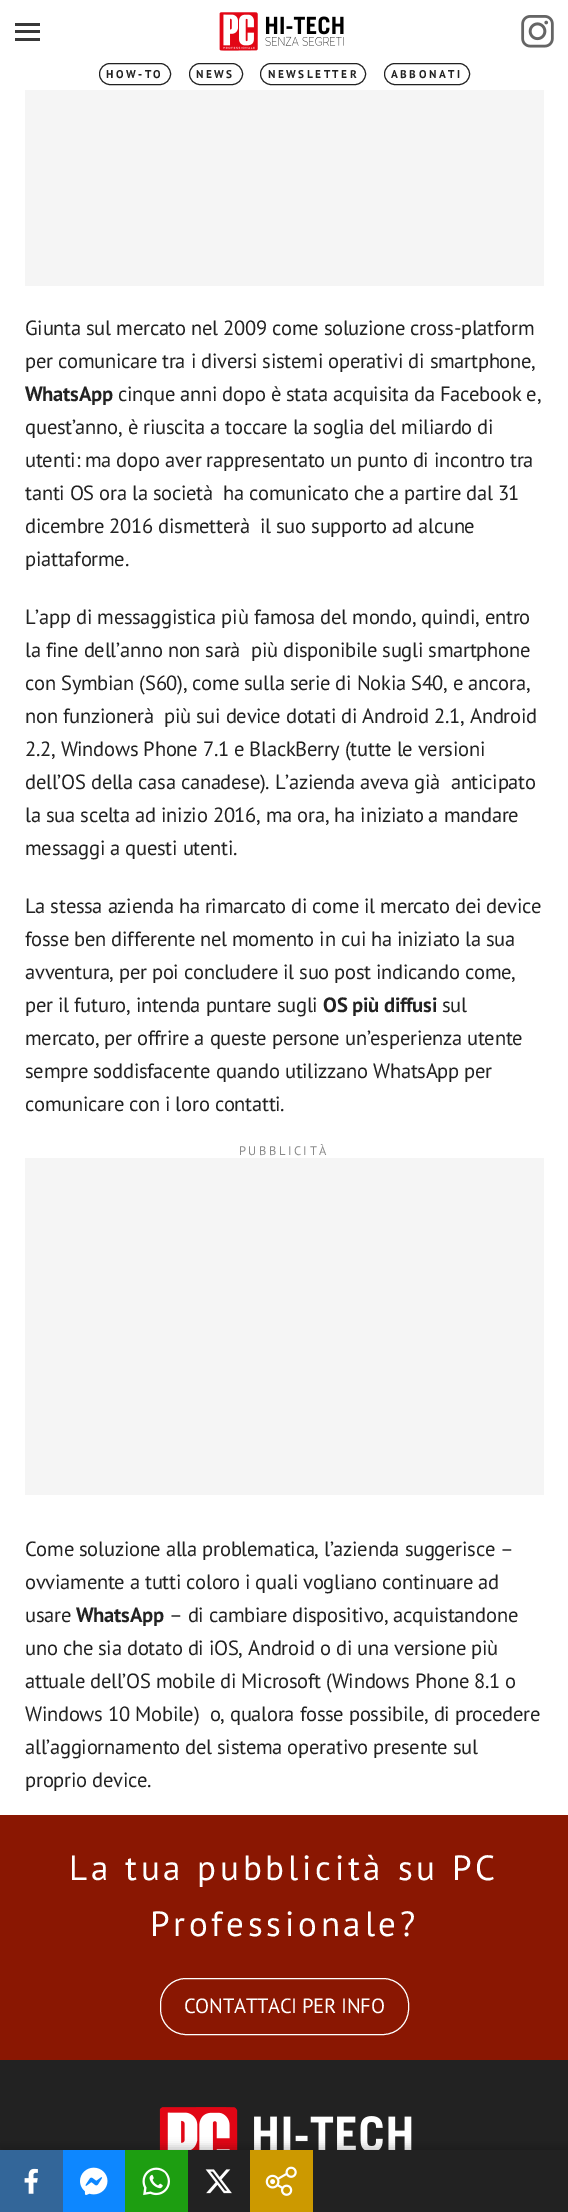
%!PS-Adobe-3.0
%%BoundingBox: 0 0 568 2212
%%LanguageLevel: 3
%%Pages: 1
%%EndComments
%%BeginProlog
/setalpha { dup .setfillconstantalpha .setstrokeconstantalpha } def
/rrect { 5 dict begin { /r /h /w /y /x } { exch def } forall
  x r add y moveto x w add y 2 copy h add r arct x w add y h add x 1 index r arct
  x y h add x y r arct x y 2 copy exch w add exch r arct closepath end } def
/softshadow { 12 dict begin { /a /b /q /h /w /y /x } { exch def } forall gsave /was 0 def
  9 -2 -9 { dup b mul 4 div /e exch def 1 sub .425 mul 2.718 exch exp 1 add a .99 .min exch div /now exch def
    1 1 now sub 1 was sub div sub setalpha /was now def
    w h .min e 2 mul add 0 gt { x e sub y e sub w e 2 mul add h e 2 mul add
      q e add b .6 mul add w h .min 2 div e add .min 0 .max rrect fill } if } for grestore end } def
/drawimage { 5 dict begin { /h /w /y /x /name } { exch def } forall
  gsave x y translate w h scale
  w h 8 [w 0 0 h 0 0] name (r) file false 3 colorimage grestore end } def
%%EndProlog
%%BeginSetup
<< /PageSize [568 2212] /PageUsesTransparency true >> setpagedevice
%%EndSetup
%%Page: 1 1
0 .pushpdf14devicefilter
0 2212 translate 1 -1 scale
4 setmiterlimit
1 setgray
0 0 568 2212 rectfill
0.22 setgray
15 23 25 3 rectfill
15 30 25 3 rectfill
15 38 25 3 rectfill
(images/1.raw) 219 12 125 39 drawimage
(images/2.raw) 521 15 33 33 drawimage
0.133 setgray
99.5 63.5 71 21 10.5 rrect stroke
189.5 63.5 53 21 10.5 rrect stroke
260.5 63.5 105 21 10.5 rrect stroke
384.5 63.5 85 21 10.5 rrect stroke
0.961 setgray
25 90 519 196 rectfill
25 1158 519 337 rectfill
0.541 0.09 0.008 setrgbcolor
0 1815 568 245 rectfill
1 setgray
160.5 1978.5 248 56 25.5 rrect stroke
0.133 setgray
0 2060 568 90 rectfill
(images/3.raw) 159 2107 253 43 drawimage
0 setgray
0 2146 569 63 0 4 0.2 softshadow
0.133 setgray
188 2150 380 62 rectfill
0.2 0.4 0.6 setrgbcolor
0 2150 63 62 rectfill
(images/4.raw) 24 2168 14 26 drawimage
0.051 0.529 1 setrgbcolor
63 2150 62 62 rectfill
(images/5.raw) 80 2167 28 28 drawimage
0.114 0.62 0.067 setrgbcolor
125 2150 63 62 rectfill
(images/6.raw) 142 2167 28 29 drawimage
(images/7.raw) 205 2169 27 25 drawimage
0.8 0.6 0 setrgbcolor
250 2150 63 62 rectfill
(images/8.raw) 265 2166 32 30 drawimage
/PTSans-Bold [11.25 0 0 -11.25 0 0] selectfont
0.133 setgray
106 78 moveto 2.5 0 (HOW-TO) ashow
196 78 moveto 2.5 0 (NEWS) ashow
268 78 moveto 2.5 0 (NEWSLETTER) ashow
391 78 moveto 2.5 0 (ABBONATI) ashow
/PTSans-Regular [20.6 0 0 -20.6 0 0] selectfont
25 335 moveto -0.3 0 (Giunta sul mercato nel 2009 come soluzione cross-platform) ashow
25 368 moveto -0.3 0 (per comunicare tra i diversi sistemi operativi di smartphone,) ashow
/PTSans-Bold [20.6 0 0 -20.6 0 0] selectfont
25 401 moveto -0.3 0 (WhatsApp) ashow
/PTSans-Regular [20.6 0 0 -20.6 0 0] selectfont
118 401 moveto -0.3 0 (cinque anni dopo è stata acquisita da Facebook e,) ashow
25 434 moveto -0.3 0 (quest’anno, è riuscita a toccare la soglia del miliardo di) ashow
25 467 moveto -0.3 0 (utenti: ma dopo aver rappresentato un punto di incontro tra) ashow
25 500 moveto -0.3 0 (tanti OS ora la società  ha comunicato che a partire dal 31) ashow
25 533 moveto -0.3 0 (dicembre 2016 dismetterà  il suo supporto ad alcune) ashow
25 566 moveto -0.3 0 (piattaforme.) ashow
25 624 moveto -0.3 0 (L’app di messaggistica più famosa del mondo, quindi, entro) ashow
25 657 moveto -0.3 0 (la fine dell’anno non sarà  più disponibile sugli smartphone) ashow
25 690 moveto -0.3 0 (con Symbian \(S60\), come sulla serie di Nokia S40, e ancora,) ashow
25 723 moveto -0.3 0 (non funzionerà  più sui device dotati di Android 2.1, Android) ashow
25 756 moveto -0.3 0 (2.2, Windows Phone 7.1 e BlackBerry \(tutte le versioni) ashow
25 789 moveto -0.3 0 (dell’OS della casa canadese\). L’azienda aveva già  anticipato) ashow
25 822 moveto -0.3 0 (la sua scelta ad inizio 2016, ma ora, ha iniziato a mandare) ashow
25 855 moveto -0.3 0 (messaggi a questi utenti.) ashow
25 913 moveto -0.3 0 (La stessa azienda ha rimarcato di come il mercato dei device) ashow
25 946 moveto -0.3 0 (fosse ben differente nel momento in cui ha iniziato la sua) ashow
25 979 moveto -0.3 0 (avventura, per poi concludere il suo post indicando come,) ashow
25 1012 moveto -0.3 0 (per il futuro, intenda puntare sugli) ashow
/PTSans-Bold [20.6 0 0 -20.6 0 0] selectfont
323 1012 moveto -0.3 0 (OS più diffusi) ashow
/PTSans-Regular [20.6 0 0 -20.6 0 0] selectfont
442 1012 moveto -0.3 0 (sul) ashow
25 1045 moveto -0.3 0 (mercato, per offrire a queste persone un’esperienza utente) ashow
25 1078 moveto -0.3 0 (sempre soddisfacente quando utilizzano WhatsApp per) ashow
25 1111 moveto -0.3 0 (comunicare con i loro contatti.) ashow
/PTSans-Regular [12.5 0 0 -12.5 0 0] selectfont
0.533 setgray
239 1155 moveto 2.5 0 (PUBBLICITÀ) ashow
/PTSans-Regular [20.6 0 0 -20.6 0 0] selectfont
0.133 setgray
25 1556 moveto -0.3 0 (Come soluzione alla problematica, l’azienda suggerisce –) ashow
25 1589 moveto -0.3 0 (ovviamente a tutti coloro i quali vogliano continuare ad) ashow
25 1622 moveto -0.3 0 (usare) ashow
/PTSans-Bold [20.6 0 0 -20.6 0 0] selectfont
76 1622 moveto -0.3 0 (WhatsApp) ashow
/PTSans-Regular [20.6 0 0 -20.6 0 0] selectfont
169 1622 moveto -0.3 0 (– di cambiare dispositivo, acquistandone) ashow
25 1655 moveto -0.3 0 (uno che sia dotato di iOS, Android o di una versione più) ashow
25 1688 moveto -0.3 0 (attuale dell’OS mobile di Microsoft \(Windows Phone 8.1 o) ashow
25 1721 moveto -0.3 0 (Windows 10 Mobile\)  o, qualora fosse possibile, di procedere) ashow
25 1754 moveto -0.3 0 (all’aggiornamento del sistema operativo presente sul) ashow
25 1787 moveto -0.3 0 (proprio device.) ashow
/PTSans-Regular [35 0 0 -35 0 0] selectfont
1 setgray
69 1880 moveto 3.75 0 (La tua pubblicità su PC) ashow
150 1936 moveto 3.75 0 (Professionale?) ashow
/PTSans-Regular [20.6 0 0 -20.6 0 0] selectfont
184 2013 moveto -0.3 0 (CONTATTACI PER INFO) ashow
.poppdf14devicefilter showpage
%%EOF
